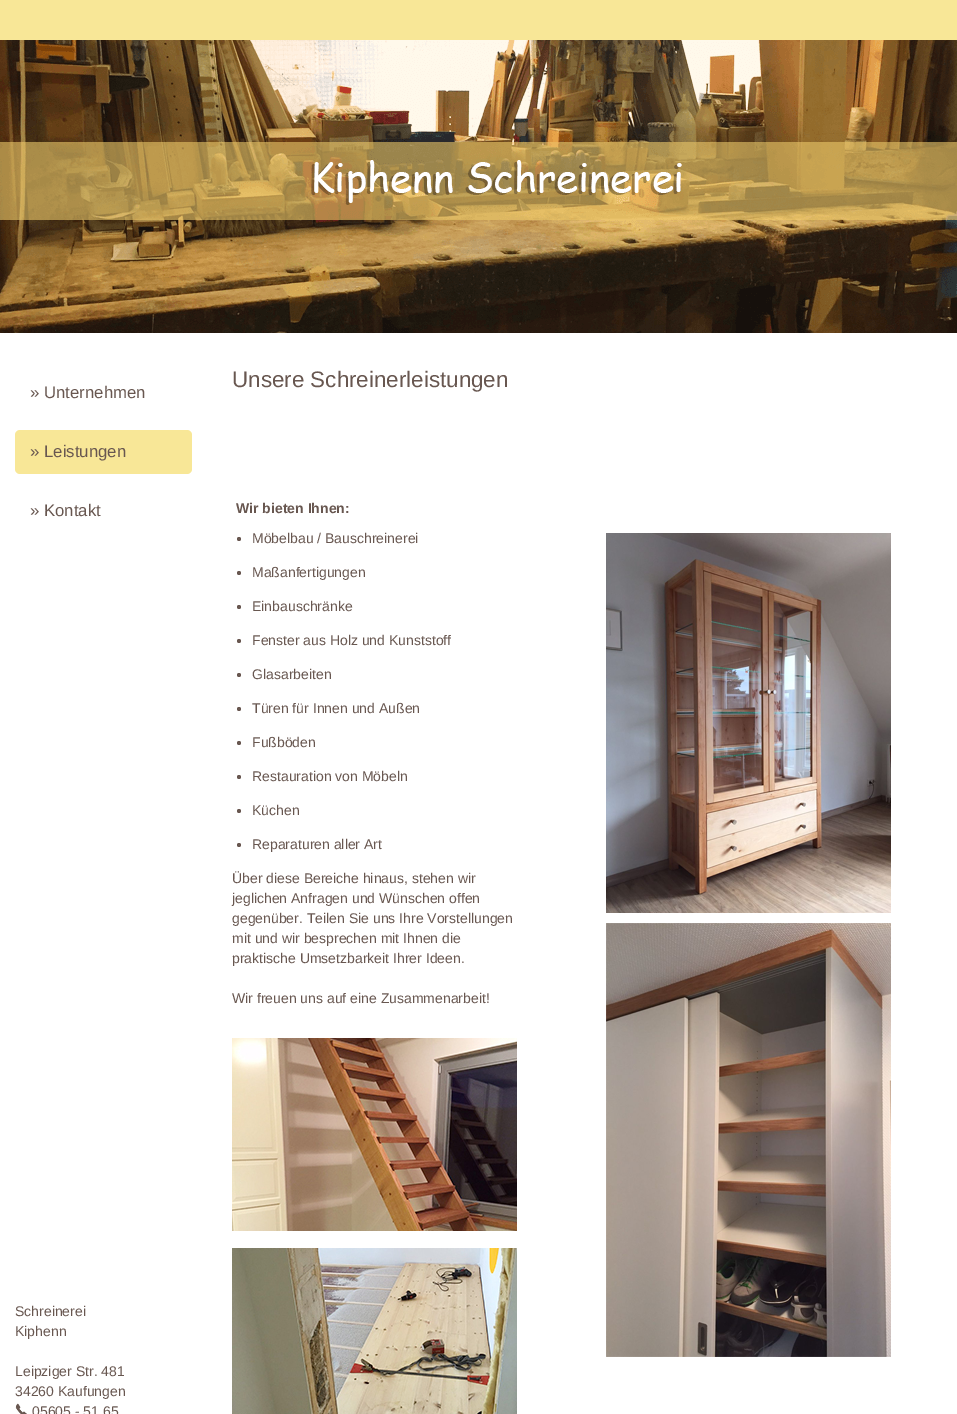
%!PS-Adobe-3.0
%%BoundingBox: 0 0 957 1414
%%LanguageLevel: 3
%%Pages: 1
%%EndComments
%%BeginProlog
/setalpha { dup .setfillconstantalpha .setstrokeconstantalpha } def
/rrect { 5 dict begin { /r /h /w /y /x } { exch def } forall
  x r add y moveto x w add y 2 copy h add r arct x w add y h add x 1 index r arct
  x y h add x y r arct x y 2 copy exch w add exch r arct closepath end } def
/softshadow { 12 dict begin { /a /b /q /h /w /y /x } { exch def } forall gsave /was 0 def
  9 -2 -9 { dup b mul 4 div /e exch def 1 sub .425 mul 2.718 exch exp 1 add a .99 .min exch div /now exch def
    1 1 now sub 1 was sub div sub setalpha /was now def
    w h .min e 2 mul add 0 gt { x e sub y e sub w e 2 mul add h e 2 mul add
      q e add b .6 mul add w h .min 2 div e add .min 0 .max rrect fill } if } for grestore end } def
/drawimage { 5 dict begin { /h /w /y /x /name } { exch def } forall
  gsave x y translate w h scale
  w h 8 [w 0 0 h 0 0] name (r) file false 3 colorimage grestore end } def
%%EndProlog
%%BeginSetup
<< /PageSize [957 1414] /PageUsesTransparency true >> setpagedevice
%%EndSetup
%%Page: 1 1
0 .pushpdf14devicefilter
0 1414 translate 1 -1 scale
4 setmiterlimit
0.973 0.906 0.592 setrgbcolor
0 0 957 1414 rectfill
(images/1.raw) 0 40 957 293 drawimage
0 setgray
-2 331 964 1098 7 2.5 0.05 softshadow
1 setgray
192 477 765 937 rectfill
newpath 192 333 moveto 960 333 lineto 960 473 lineto 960 476 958 478 955 478 curveto 192 478 lineto closepath fill
0 333 192 1081 rectfill
0.973 0.906 0.592 setrgbcolor
15 430 177 44 5 rrect fill
(images/2.raw) 15 1403 12 11 drawimage
0.408 0.341 0.314 setrgbcolor
newpath 239 539 2 0 360 arc closepath fill
newpath 239 573 2 0 360 arc closepath fill
newpath 239 607 2 0 360 arc closepath fill
newpath 239 641 2 0 360 arc closepath fill
newpath 239 675 2 0 360 arc closepath fill
newpath 239 709 2 0 360 arc closepath fill
newpath 239 743 2 0 360 arc closepath fill
newpath 239 777 2 0 360 arc closepath fill
newpath 239 811 2 0 360 arc closepath fill
newpath 239 845 2 0 360 arc closepath fill
(images/3.raw) 232 1038 285 193 drawimage
(images/4.raw) 232 1248 285 166 drawimage
(images/5.raw) 606 533 285 380 drawimage
(images/6.raw) 606 923 285 434 drawimage
/LiberationSans-Regular [22.4 0 0 -22.4 0 0] selectfont
232 387 moveto (Unsere Schreinerleistungen) show
/LiberationSans-Regular [16.75 0 0 -16.75 0 0] selectfont
30 398 moveto (» Unternehmen) show
30 457 moveto (» Leistungen) show
30 516 moveto (» Kontakt) show
/LiberationSans-Regular [14 0 0 -14 0 0] selectfont
15 1316 moveto (Schreinerei) show
15 1336 moveto (Kiphenn) show
15 1376 moveto (Leipziger Str. 481) show
15 1396 moveto (34260 Kaufungen) show
32 1416 moveto (05605 - 51 65) show
/LiberationSans-Bold [14 0 0 -14 0 0] selectfont
236 513 moveto (Wir bieten Ihnen:) show
/LiberationSans-Regular [14 0 0 -14 0 0] selectfont
252 543 moveto (Möbelbau / Bauschreinerei) show
252 577 moveto (Maßanfertigungen) show
252 611 moveto (Einbauschränke) show
252 645 moveto (Fenster aus Holz und Kunststoff) show
252 679 moveto (Glasarbeiten) show
252 713 moveto (Türen für Innen und Außen) show
252 747 moveto (Fußböden) show
252 781 moveto (Restauration von Möbeln) show
252 815 moveto (Küchen) show
252 849 moveto (Reparaturen aller Art) show
232 883 moveto (Über diese Bereiche hinaus, stehen wir) show
232 903 moveto (jeglichen Anfragen und Wünschen offen) show
232 923 moveto (gegenüber. Teilen Sie uns Ihre Vorstellungen) show
232 943 moveto (mit und wir besprechen mit Ihnen die) show
232 963 moveto (praktische Umsetzbarkeit Ihrer Ideen.) show
232 1003 moveto (Wir freuen uns auf eine Zusammenarbeit!) show
.poppdf14devicefilter showpage
%%EOF
